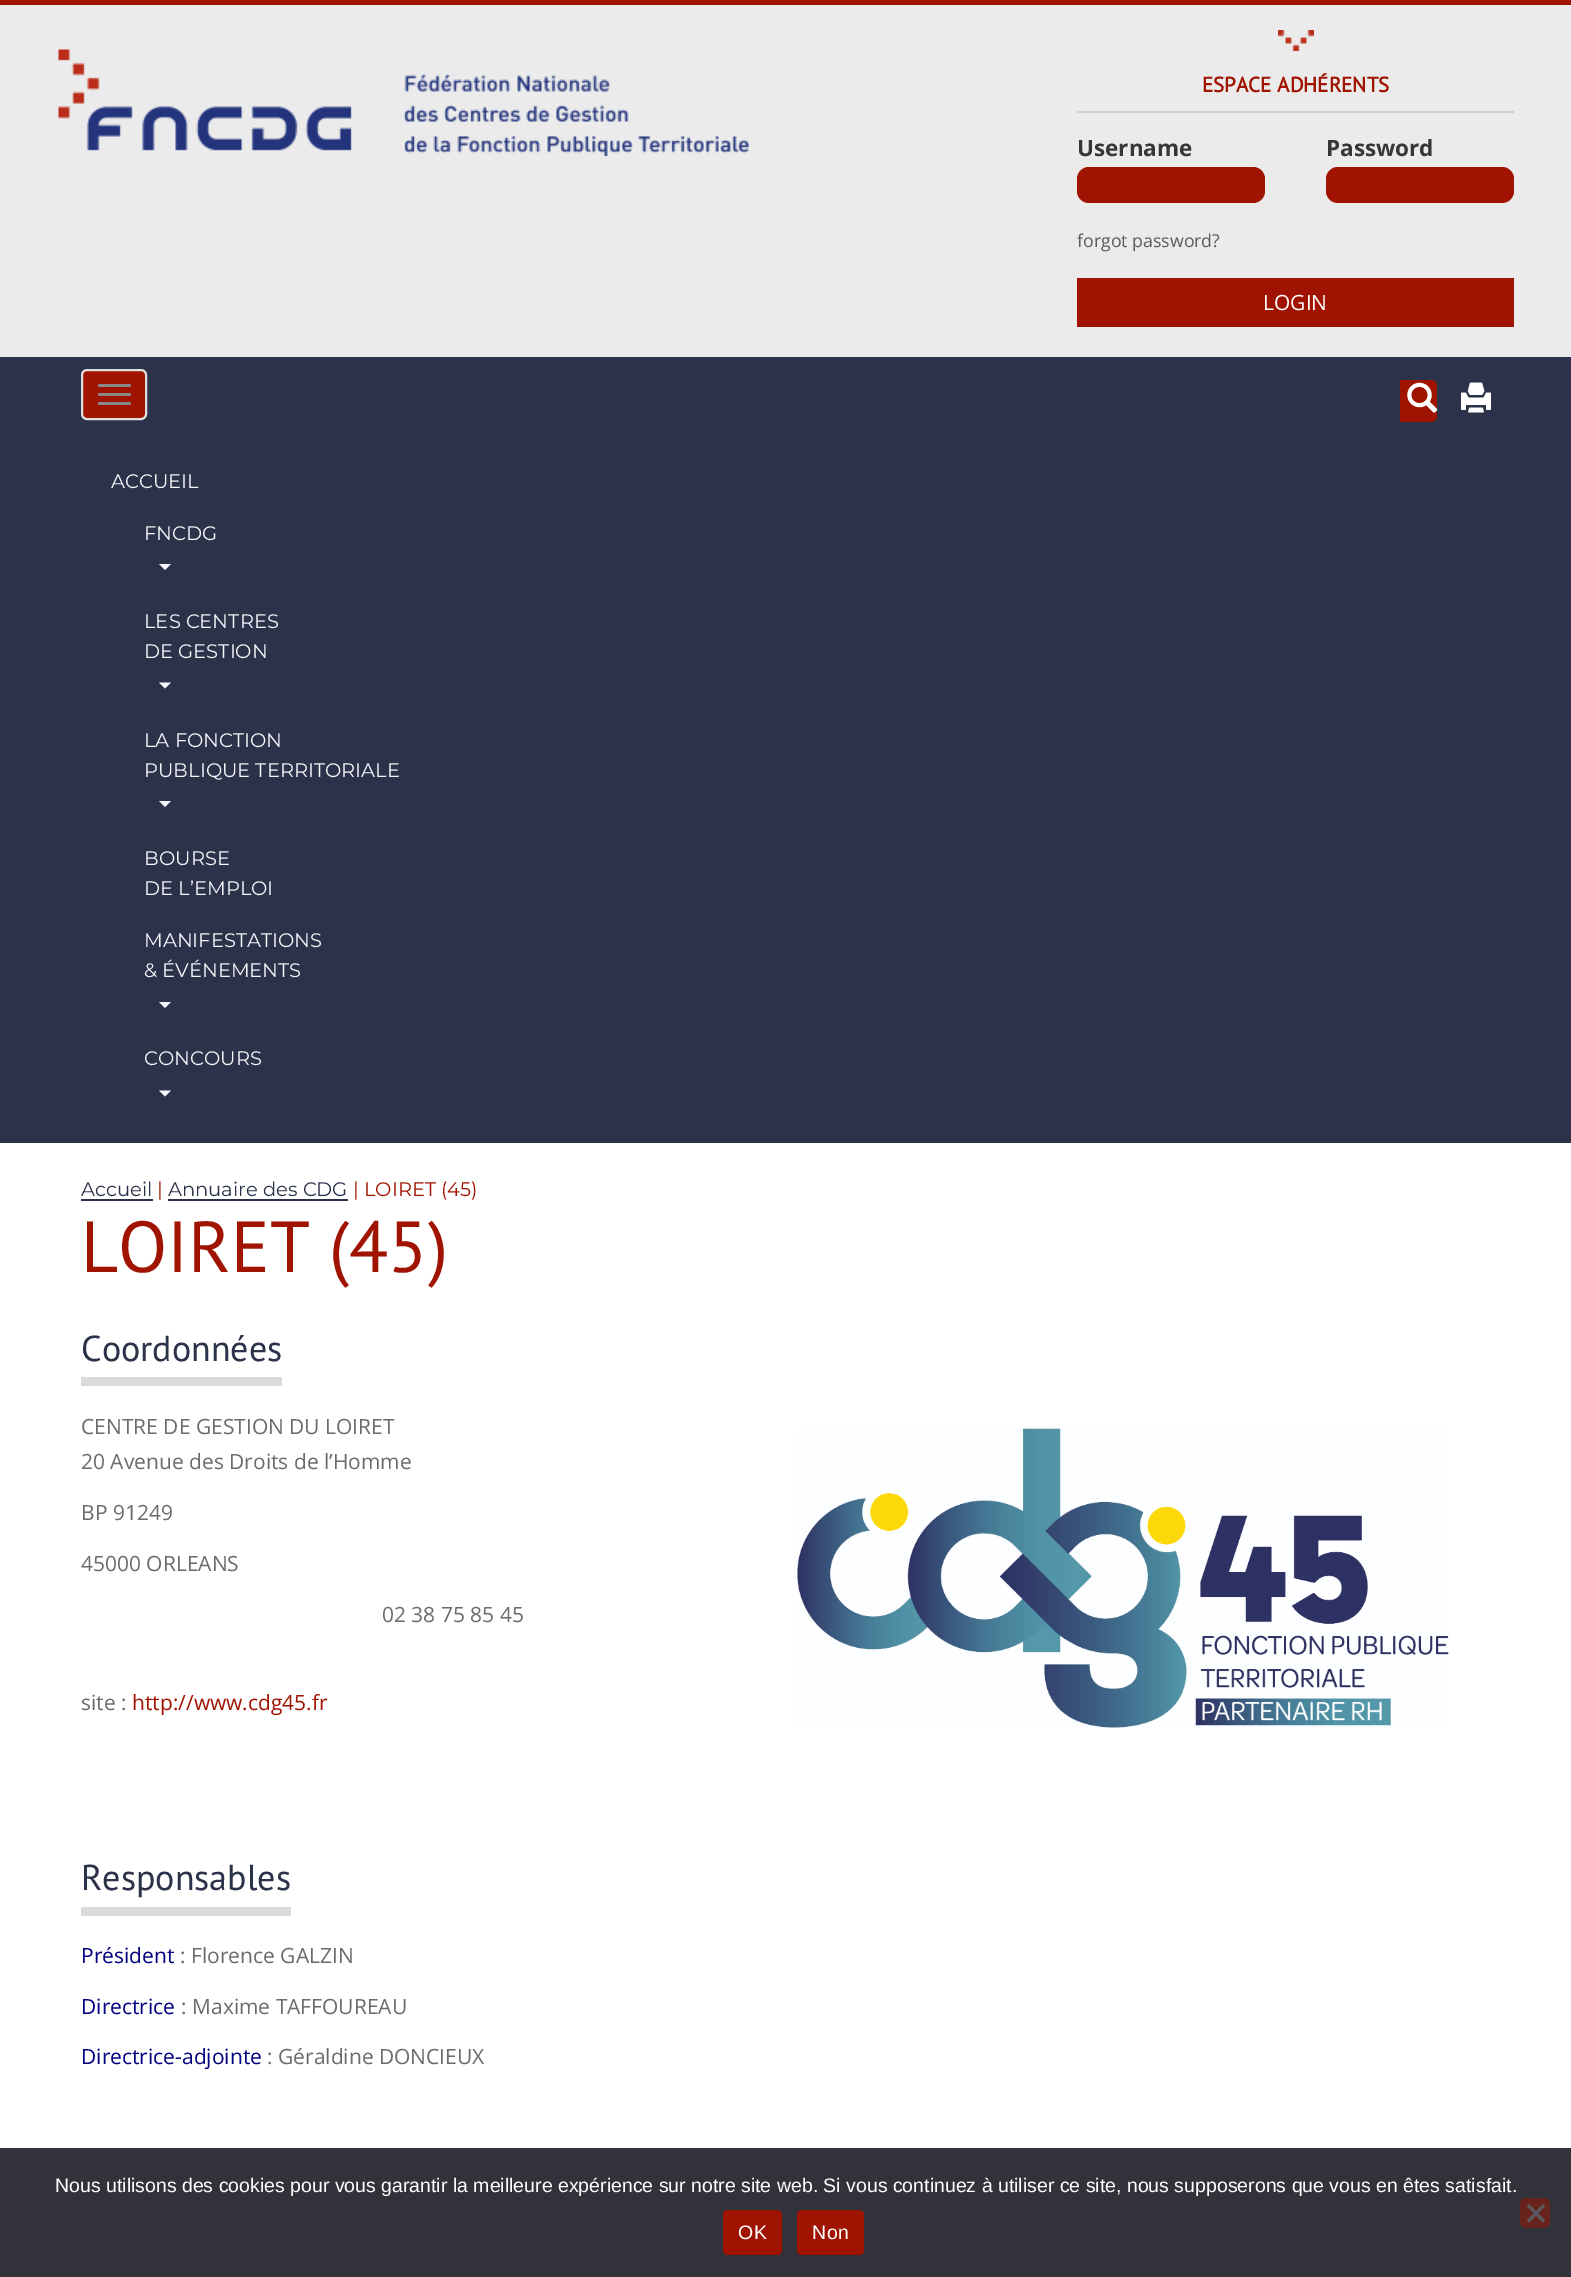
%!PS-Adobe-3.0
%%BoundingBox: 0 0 1571 2277
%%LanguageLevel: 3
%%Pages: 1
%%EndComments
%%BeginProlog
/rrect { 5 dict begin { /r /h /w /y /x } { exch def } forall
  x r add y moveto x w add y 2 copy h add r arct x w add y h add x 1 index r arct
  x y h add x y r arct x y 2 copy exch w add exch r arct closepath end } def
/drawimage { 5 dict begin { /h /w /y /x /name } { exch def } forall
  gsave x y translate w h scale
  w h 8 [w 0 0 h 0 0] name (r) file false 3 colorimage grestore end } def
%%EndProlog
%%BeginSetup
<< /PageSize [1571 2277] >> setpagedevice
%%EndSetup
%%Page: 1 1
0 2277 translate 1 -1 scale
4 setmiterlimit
0.922 setgray
0 0 1571 2277 rectfill
0.627 0.075 0 setrgbcolor
0 0 1571 5 rectfill
(images/1.raw) 58 49 691 107 drawimage
(images/2.raw) 1278 30 36 21 drawimage
0.812 0.812 0.816 setrgbcolor
1077 111 437 2 rectfill
0.627 0.075 0 setrgbcolor
1077 167 188 36 12 rrect fill
1326 167 188 36 12 rrect fill
1077 278 437 49 rectfill
0.173 0.196 0.286 setrgbcolor
0 357 1571 786 rectfill
0.627 0.075 0 setrgbcolor
newpath 1400 380 moveto 1431 380 lineto 1434.5 380 1437 382.5 1437 386 curveto 1437 416 lineto 1437 419.5 1434.5 422 1431 422 curveto 1400 422 lineto closepath fill
(images/3.raw) 1407 382 31 31 drawimage
(images/4.raw) 1461 382 30 31 drawimage
82 370 64 49 5 rrect gsave fill grestore
0.867 setgray
2 setlinewidth
stroke
0.533 setgray
98 384 33 3 1.5 rrect fill
98 393 33 3 1.5 rrect fill
98 402 33 3 1.5 rrect fill
0.961 0.969 0.98 setrgbcolor
newpath 159 564 moveto 171 564 lineto 165 570 lineto closepath fill
newpath 159 682.5 moveto 171 682.5 lineto 165 688.5 lineto closepath fill
newpath 159 801 moveto 171 801 lineto 165 807 lineto closepath fill
newpath 159 1002 moveto 171 1002 lineto 165 1008 lineto closepath fill
newpath 159 1090.5 moveto 171 1090.5 lineto 165 1096.5 lineto closepath fill
1 setgray
0 1143 1571 1005 rectfill
0.173 0.196 0.286 setrgbcolor
81 1199 72 2 rectfill
168 1199 180 2 rectfill
0.855 setgray
81 1377 201 9 rectfill
(images/5.raw) 797 1428 652 300 drawimage
81 1907 210 9 rectfill
0.196 0.196 0.227 setrgbcolor
0 2148 1571 129 rectfill
0.412 0.137 0.114 setrgbcolor
1520 2198 30 30 6 rrect fill
0.349 0.349 0.365 setrgbcolor
newpath 1543 2204 moveto 1545 2206.5 lineto 1529 2222.5 lineto 1527 2220 lineto closepath fill
newpath 1527 2206.5 moveto 1529 2204 lineto 1545 2220 lineto 1543 2222.5 lineto closepath fill
0.627 0.075 0 setrgbcolor
723 2210 59 45 5 rrect fill
797 2210 67 45 5 rrect fill
/PTSans-Bold [21 0 0 -21 0 0] selectfont
1202 92 moveto (ESPACE ADHÉRENTS) show
/OpenSans-Bold [22.5 0 0 -22.5 0 0] selectfont
0.216 setgray
1077 156 moveto (Username) show
1326 156 moveto (Password) show
/OpenSans-Regular [17.75 0 0 -17.75 0 0] selectfont
0.357 setgray
1077 247 moveto (forgot password?) show
/OpenSans-Regular [21 0 0 -21 0 0] selectfont
1 setgray
1263 310 moveto (LOGIN) show
/Montserrat-Thin [19.5 0 0 -19.5 0 0] selectfont
0.961 0.969 0.98 setrgbcolor
111 488 moveto (ACCUEIL) show
144 540 moveto (FNCDG) show
144 628 moveto (LES CENTRES) show
144 658 moveto (DE GESTION) show
144 747 moveto (LA FONCTION) show
144 777 moveto (PUBLIQUE TERRITORIALE) show
144 865 moveto (BOURSE) show
144 895 moveto (DE L’EMPLOI) show
144 947 moveto (MANIFESTATIONS) show
144 977 moveto (& ÉVÉNEMENTS) show
144 1065 moveto (CONCOURS) show
0.173 0.196 0.286 setrgbcolor
81 1196 moveto (Accueil) show
0.627 0.075 0 setrgbcolor
157 1196 moveto (|) show
0.173 0.196 0.286 setrgbcolor
168 1196 moveto (Annuaire des CDG) show
0.627 0.075 0 setrgbcolor
353 1196 moveto (| LOIRET \(45\)) show
/PTSans-Regular [72 0 0 -72 0 0] selectfont
81 1272 moveto (LOIRET \(45\)) show
/PTSans-Regular [36 0 0 -36 0 0] selectfont
0.173 0.196 0.286 setrgbcolor
81 1361 moveto (Coordonnées) show
/OpenSans-Regular [21 0 0 -21 0 0] selectfont
0.42 setgray
81 1434 moveto (CENTRE DE GESTION DU LOIRET) show
81 1469 moveto (20 Avenue des Droits de l’Homme) show
81 1520 moveto (BP 91249) show
81 1571 moveto (45000 ORLEANS) show
382 1622 moveto (02 38 75 85 45) show
81 1710 moveto (site :) show
0.627 0.075 0 setrgbcolor
132 1710 moveto (http://www.cdg45.fr) show
/PTSans-Regular [36 0 0 -36 0 0] selectfont
0.173 0.196 0.286 setrgbcolor
81 1890 moveto (Responsables) show
/OpenSans-Regular [21 0 0 -21 0 0] selectfont
0 0 0.502 setrgbcolor
81 1963 moveto (Président) show
0.42 setgray
180 1963 moveto (: Florence GALZIN) show
0 0 0.502 setrgbcolor
81 2014 moveto (Directrice) show
0.42 setgray
181 2014 moveto (: Maxime TAFFOUREAU) show
0 0 0.502 setrgbcolor
81 2064 moveto (Directrice-adjointe) show
0.42 setgray
267 2064 moveto (: Géraldine DONCIEUX) show
/LiberationSans-Regular [19.5 0 0 -19.5 0 0] selectfont
1 setgray
55 2192 moveto (Nous utilisons des cookies pour vous garantir la meilleure expérience sur notre site web. Si vous continuez à utiliser ce site, nous supposerons que vous en êtes satisfait.) show
738 2239 moveto 0.5 0 (OK) ashow
812 2239 moveto 0.5 0 (Non) ashow
showpage
%%EOF
